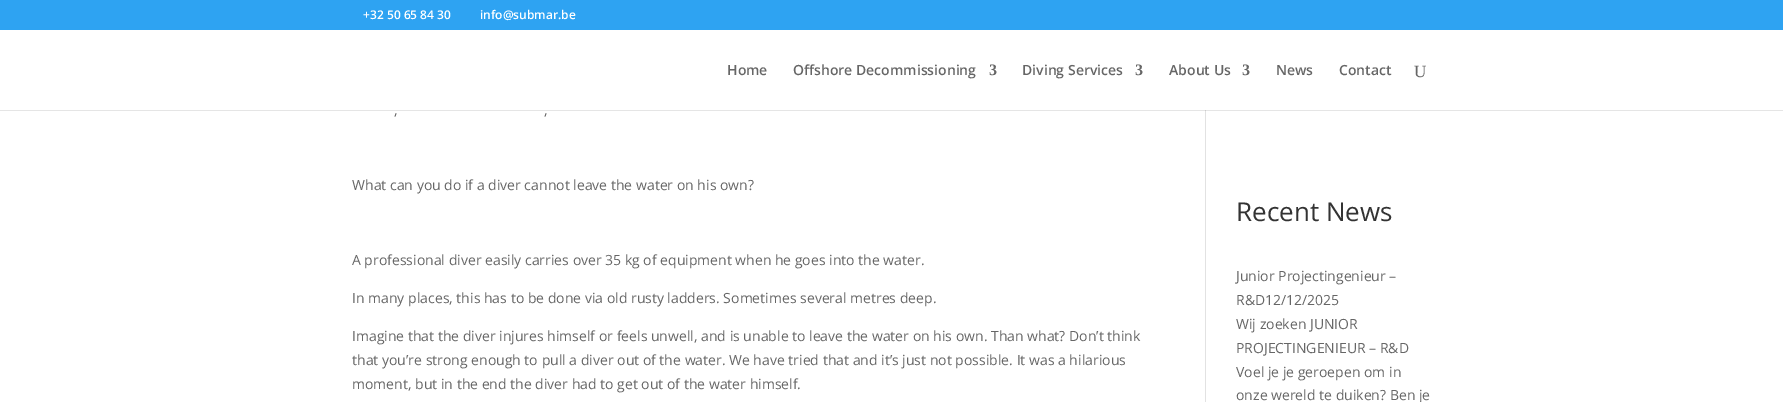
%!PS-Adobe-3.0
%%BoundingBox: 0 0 1783 402
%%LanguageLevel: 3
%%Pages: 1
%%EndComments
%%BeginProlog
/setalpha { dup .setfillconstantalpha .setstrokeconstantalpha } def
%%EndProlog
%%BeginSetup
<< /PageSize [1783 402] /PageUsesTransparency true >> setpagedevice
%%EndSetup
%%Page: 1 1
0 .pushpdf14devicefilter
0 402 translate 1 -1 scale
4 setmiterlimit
1 setgray
0 0 1783 402 rectfill
0.18 0.639 0.949 setrgbcolor
0 0 1783 30 rectfill
0.886 setgray
1205 110 1 292 rectfill
0.1 setalpha
0 setgray
0 110 1783 1 rectfill
/OpenSans-SemiBold [12 0 0 -12 0 0] selectfont
1 setalpha
1 setgray
363 19 moveto (+32 50 65 84 30) show
480 19 moveto (info@submar.be) show
/OpenSans-SemiBold [14 0 0 -14 0 0] selectfont
0.4 setgray
727 75 moveto (Home) show
793 75 moveto (Offshore Decommissioning) show
/LiberationSerif-Bold [16 0 0 -16 0 0] selectfont
989 75 moveto (3) show
/OpenSans-SemiBold [14 0 0 -14 0 0] selectfont
1022 75 moveto (Diving Services) show
/LiberationSerif-Bold [16 0 0 -16 0 0] selectfont
1135 75 moveto (3) show
/OpenSans-SemiBold [14 0 0 -14 0 0] selectfont
1169 75 moveto (About Us) show
/LiberationSerif-Bold [16 0 0 -16 0 0] selectfont
1242 75 moveto (3) show
/OpenSans-SemiBold [14 0 0 -14 0 0] selectfont
1276 75 moveto (News) show
1339 75 moveto (Contact) show
/LiberationSerif-Regular [17 0 0 -17 0 0] selectfont
1414 77 moveto (U) show
/OpenSans-Regular [14 0 0 -14 0 0] selectfont
394 115 moveto (,) show
544 115 moveto (,) show
352 190 moveto (What can you do if a diver cannot leave the water on his own?) show
352 265 moveto (A professional diver easily carries over 35 kg of equipment when he goes into the water.) show
352 303 moveto (In many places, this has to be done via old rusty ladders. Sometimes several metres deep.) show
352 341 moveto (Imagine that the diver injures himself or feels unwell, and is unable to leave the water on his own. Than what? Don’t think) show
352 365 moveto (that you’re strong enough to pull a diver out of the water. We have tried that and it’s just not possible. It was a hilarious) show
352 389 moveto (moment, but in the end the diver had to get out of the water himself.) show
/OpenSans-Regular [26 0 0 -26 0 0] selectfont
0.2 setgray
1236 221 moveto (Recent News) show
/OpenSans-Regular [14 0 0 -14 0 0] selectfont
0.4 setgray
1236 281 moveto (Junior Projectingenieur –) show
1236 305 moveto (R&D12/12/2025) show
1236 329 moveto (Wij zoeken JUNIOR) show
1236 353 moveto (PROJECTINGENIEUR – R&D) show
1236 377 moveto (Voel je je geroepen om in) show
1236 400 moveto (onze wereld te duiken? Ben je) show
.poppdf14devicefilter showpage
%%EOF
